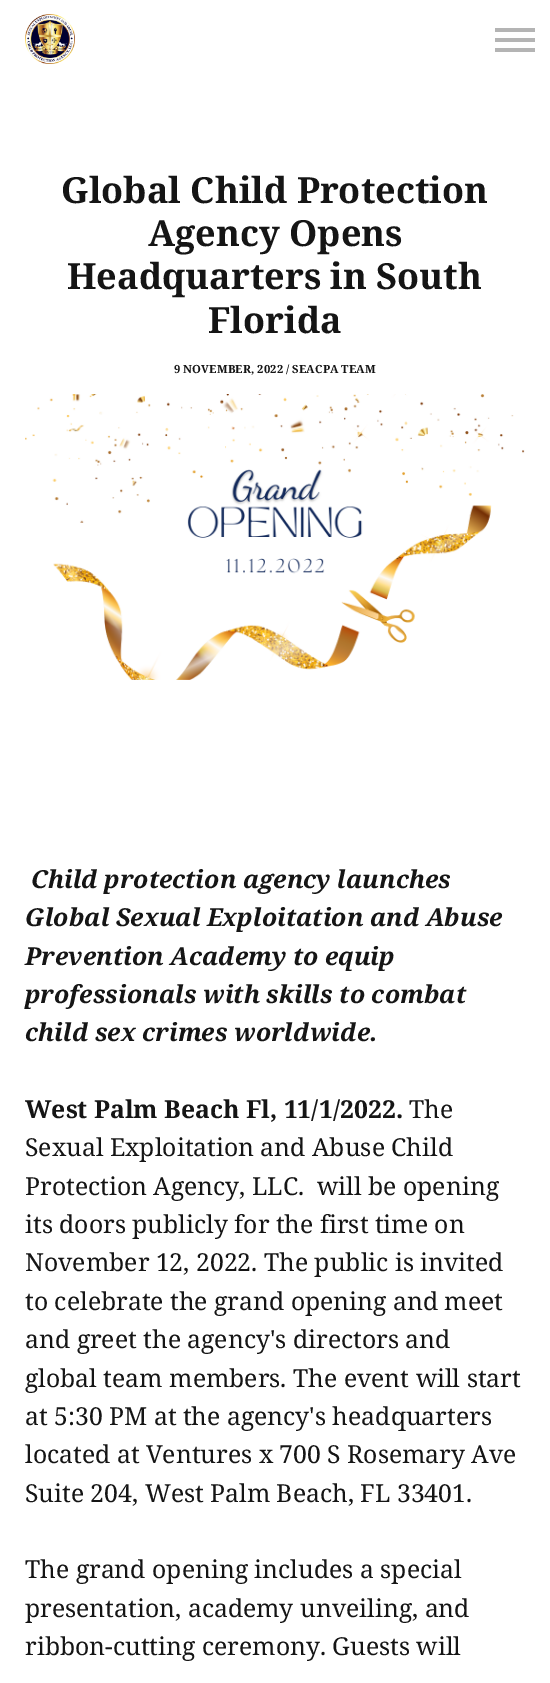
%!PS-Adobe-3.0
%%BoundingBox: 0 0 550 1683
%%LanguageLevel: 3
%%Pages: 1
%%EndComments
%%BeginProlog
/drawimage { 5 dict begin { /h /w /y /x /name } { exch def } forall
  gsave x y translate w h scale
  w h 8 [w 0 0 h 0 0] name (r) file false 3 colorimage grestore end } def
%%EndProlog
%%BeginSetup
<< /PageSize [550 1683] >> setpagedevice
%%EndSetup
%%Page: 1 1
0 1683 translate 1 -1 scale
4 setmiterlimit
1 setgray
0 0 550 1683 rectfill
(images/1.raw) 25 14 50 50 drawimage
0.706 setgray
495 48 40 4 rectfill
495 28 40 4 rectfill
495 38 40 4 rectfill
(images/2.raw) 25 394 500 286 drawimage
/NotoSerif-Bold [36 0 0 -36 0 0] selectfont
0.082 setgray
61 203 moveto (Global Child Protection) show
148 246 moveto (Agency Opens) show
67 289 moveto (Headquarters in South) show
208 333 moveto (Florida) show
/NotoSerif-Bold [11.25 0 0 -11.25 0 0] selectfont
174 373 moveto 0.1 0 (9 NOVEMBER, 2022 / SEACPA TEAM) ashow
/NotoSerif-BoldItalic [24.75 0 0 -24.75 0 0] selectfont
31 888 moveto (Child protection agency launches) show
25 926 moveto (Global Sexual Exploitation and Abuse) show
25 965 moveto (Prevention Academy to equip) show
25 1003 moveto (professionals with skills to combat) show
25 1041 moveto (child sex crimes worldwide.) show
/NotoSerif-Bold [24.75 0 0 -24.75 0 0] selectfont
25 1118 moveto (West Palm Beach Fl, 11/1/2022.) show
/NotoSerif-Regular [24.75 0 0 -24.75 0 0] selectfont
409 1118 moveto (The) show
25 1156 moveto (Sexual Exploitation and Abuse Child) show
25 1195 moveto (Protection Agency, LLC.  will be opening) show
25 1233 moveto (its doors publicly for the first time on) show
25 1271 moveto (November 12, 2022. The public is invited) show
25 1310 moveto (to celebrate the grand opening and meet) show
25 1348 moveto (and greet the agency's directors and) show
25 1387 moveto (global team members. The event will start) show
25 1425 moveto (at 5:30 PM at the agency's headquarters) show
25 1463 moveto (located at Ventures x 700 S Rosemary Ave) show
25 1502 moveto (Suite 204, West Palm Beach, FL 33401.) show
25 1578 moveto (The grand opening includes a special) show
25 1617 moveto (presentation, academy unveiling, and) show
25 1655 moveto (ribbon-cutting ceremony. Guests will) show
showpage
%%EOF
